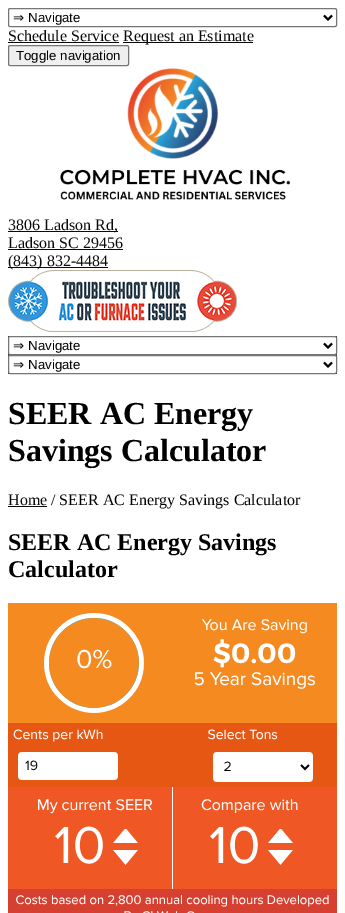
%!PS-Adobe-3.0
%%BoundingBox: 0 0 345 913
%%LanguageLevel: 3
%%Pages: 1
%%EndComments
%%BeginProlog
/rrect { 5 dict begin { /r /h /w /y /x } { exch def } forall
  x r add y moveto x w add y 2 copy h add r arct x w add y h add x 1 index r arct
  x y h add x y r arct x y 2 copy exch w add exch r arct closepath end } def
/drawimage { 5 dict begin { /h /w /y /x /name } { exch def } forall
  gsave x y translate w h scale
  w h 8 [w 0 0 h 0 0] name (r) file false 3 colorimage grestore end } def
%%EndProlog
%%BeginSetup
<< /PageSize [345 913] >> setpagedevice
%%EndSetup
%%Page: 1 1
0 913 translate 1 -1 scale
4 setmiterlimit
1 setgray
0 0 345 913 rectfill
0.463 setgray
8.5 8.5 328 18 1.5 rrect stroke
0 setgray
2 setlinewidth
newpath 324 15.5 moveto 328 19.5 lineto 332 15.5 lineto stroke
0.039 setgray
8 42 111 1 rectfill
123 42 130 1 rectfill
0.937 setgray
8.5 45.5 120 20 1.5 rrect gsave fill grestore
0.463 setgray
1 setlinewidth
stroke
(images/1.raw) 60 68 231 132 drawimage
0.039 setgray
8 231 110 1 rectfill
8 249 115 1 rectfill
8 267 100 1 rectfill
(images/2.raw) 8 270 229 62 drawimage
0 setgray
8 336 329 38 rectfill
1 setgray
8.5 336.5 328 18 1.5 rrect gsave fill grestore
0.463 setgray
stroke
0 setgray
2 setlinewidth
newpath 324 343.5 moveto 328 347.5 lineto 332 343.5 lineto stroke
1 setgray
8.5 355.5 328 18 1.5 rrect gsave fill grestore
0.463 setgray
1 setlinewidth
stroke
0 setgray
2 setlinewidth
newpath 324 362.5 moveto 328 366.5 lineto 332 362.5 lineto stroke
0.039 setgray
8 506 39 1 rectfill
(images/3.raw) 8 603 329 310 drawimage
/DejaVuSans-Regular [13.25 0 0 -13.25 0 0] selectfont
0 setgray
13 22 moveto (⇒) show
/LiberationSans-Regular [13.25 0 0 -13.25 0 0] selectfont
28 22 moveto (Navigate) show
/LiberationSerif-Regular [16 0 0 -16 0 0] selectfont
0.039 setgray
8 41 moveto (Schedule Service) show
123 41 moveto (Request an Estimate) show
/LiberationSans-Regular [13.25 0 0 -13.25 0 0] selectfont
0 setgray
16 60 moveto (Toggle navigation) show
/LiberationSerif-Regular [16 0 0 -16 0 0] selectfont
0.039 setgray
8 230 moveto (3806 Ladson Rd,) show
8 248 moveto (Ladson SC 29456) show
8 266 moveto (\(843\) 832-4484) show
/DejaVuSans-Regular [13.25 0 0 -13.25 0 0] selectfont
0 setgray
13 350 moveto (⇒) show
/LiberationSans-Regular [13.25 0 0 -13.25 0 0] selectfont
28 350 moveto (Navigate) show
/DejaVuSans-Regular [13.25 0 0 -13.25 0 0] selectfont
13 369 moveto (⇒) show
/LiberationSans-Regular [13.25 0 0 -13.25 0 0] selectfont
28 369 moveto (Navigate) show
/LiberationSerif-Bold [32 0 0 -32 0 0] selectfont
8 424 moveto (SEER AC Energy) show
8 461 moveto (Savings Calculator) show
/LiberationSerif-Regular [16 0 0 -16 0 0] selectfont
0.039 setgray
8 505 moveto (Home) show
0 setgray
51 505 moveto (/ SEER AC Energy Savings Calculator) show
/LiberationSerif-Bold [24 0 0 -24 0 0] selectfont
8 550 moveto (SEER AC Energy Savings) show
8 577 moveto (Calculator) show
showpage
%%EOF
